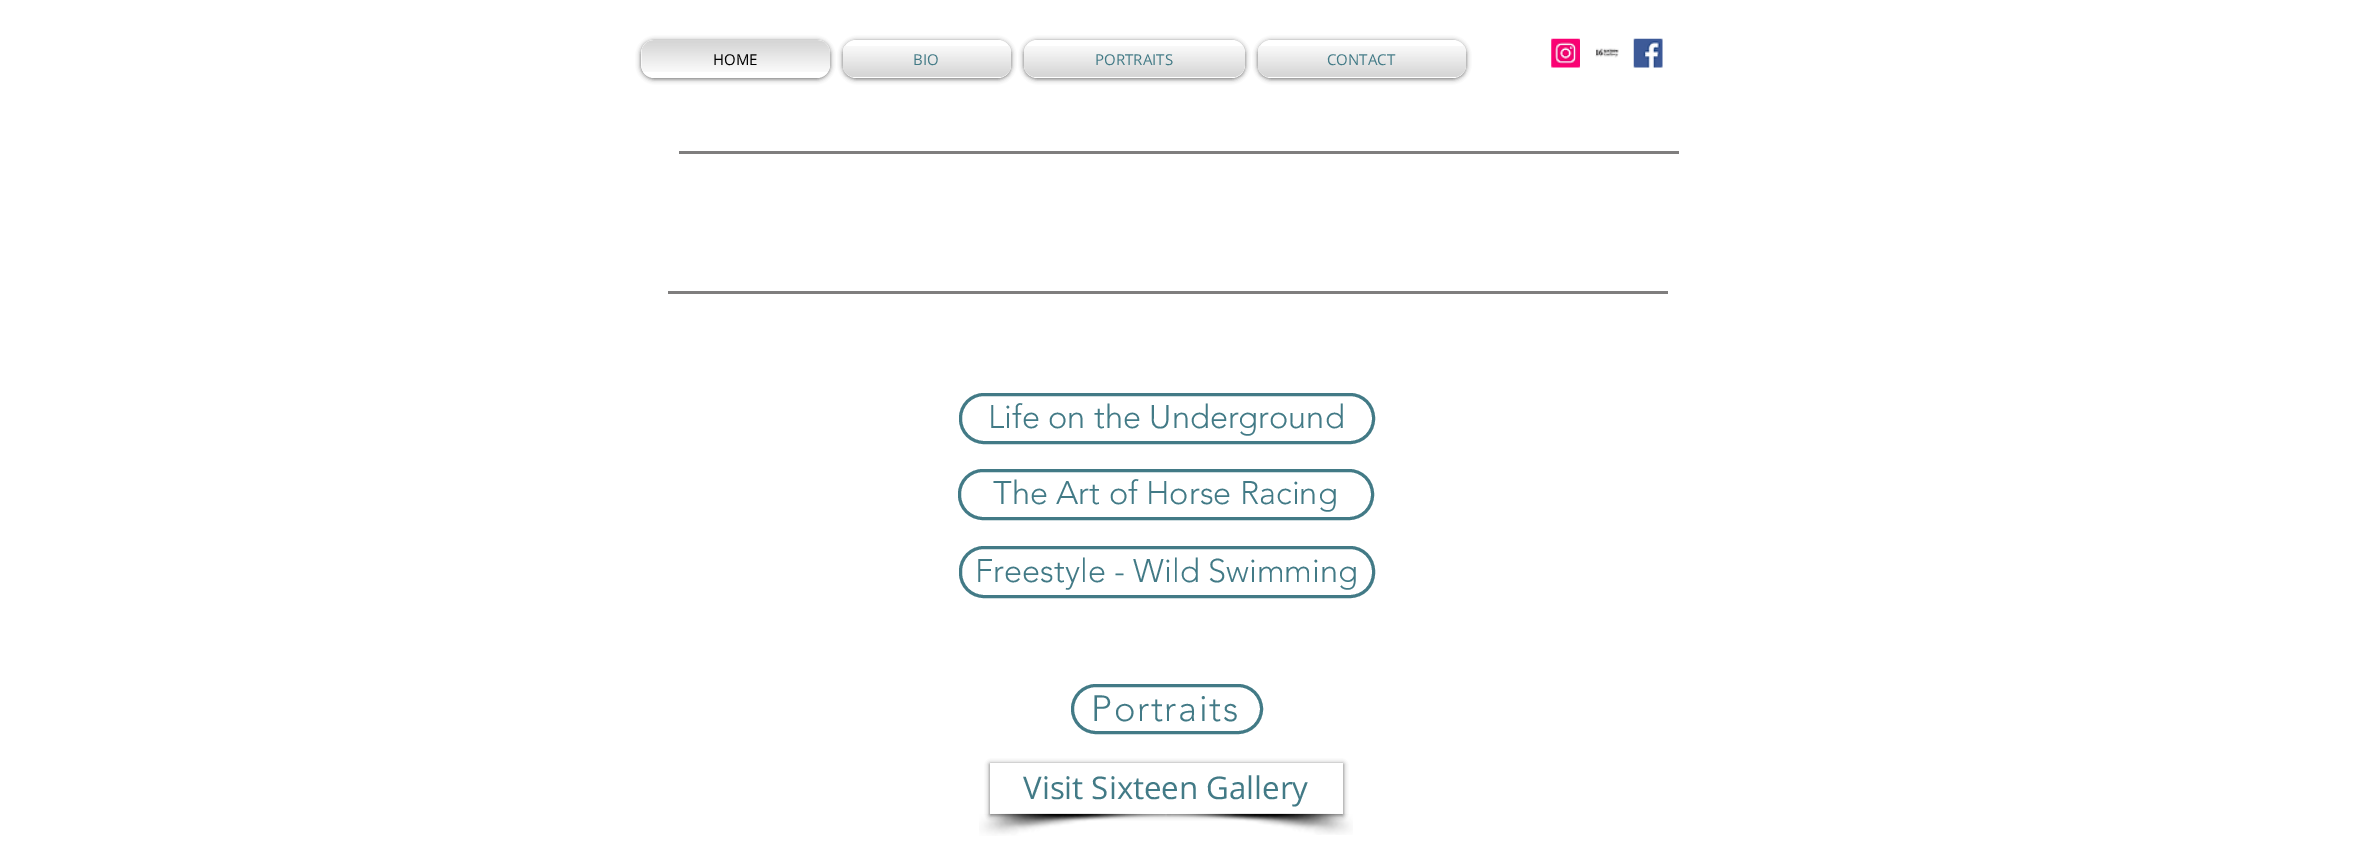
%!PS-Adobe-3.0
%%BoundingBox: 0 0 2356 857
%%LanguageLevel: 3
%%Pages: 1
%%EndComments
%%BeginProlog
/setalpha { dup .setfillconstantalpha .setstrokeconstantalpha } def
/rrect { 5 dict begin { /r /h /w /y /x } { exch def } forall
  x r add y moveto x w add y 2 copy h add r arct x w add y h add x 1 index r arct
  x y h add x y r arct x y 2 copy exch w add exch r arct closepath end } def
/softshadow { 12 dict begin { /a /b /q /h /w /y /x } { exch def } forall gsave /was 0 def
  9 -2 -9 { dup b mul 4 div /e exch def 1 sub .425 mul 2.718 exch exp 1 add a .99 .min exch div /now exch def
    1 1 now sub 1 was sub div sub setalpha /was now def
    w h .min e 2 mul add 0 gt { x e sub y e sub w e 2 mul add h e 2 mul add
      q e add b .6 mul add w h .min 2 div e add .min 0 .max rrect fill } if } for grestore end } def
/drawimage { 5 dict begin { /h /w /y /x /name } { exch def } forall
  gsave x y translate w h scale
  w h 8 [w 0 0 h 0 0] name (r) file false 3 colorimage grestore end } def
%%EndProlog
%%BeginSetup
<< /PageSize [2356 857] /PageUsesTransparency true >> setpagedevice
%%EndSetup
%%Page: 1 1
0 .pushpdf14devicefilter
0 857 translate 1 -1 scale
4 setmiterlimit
1 setgray
0 0 2356 857 rectfill
0 setgray
641 41 189 38 13 2.5 0.6 softshadow
1 setgray
641 40 189 38 13 rrect fill
(images/1.raw) 641 40 189 32 drawimage
0 setgray
843 41 168 38 13 2.5 0.6 softshadow
1 setgray
843 40 168 38 13 rrect fill
(images/2.raw) 843 46 168 31 drawimage
0 setgray
1024 41 221 38 13 2.5 0.6 softshadow
1 setgray
1024 40 221 38 13 rrect fill
(images/3.raw) 1024 46 221 31 drawimage
0 setgray
1258 41 208 38 13 2.5 0.6 softshadow
1 setgray
1258 40 208 38 13 rrect fill
(images/4.raw) 1258 46 208 31 drawimage
(images/5.raw) 1551 38 29 30 drawimage
(images/6.raw) 1595 48 24 10 drawimage
(images/7.raw) 1633 38 30 30 drawimage
0.498 0.494 0.494 setrgbcolor
679 151 1000 3 rectfill
668 291 1000 3 rectfill
0.259 0.478 0.525 setrgbcolor
3 setlinewidth
960.5 394.5 413 48 23.5 rrect stroke
959.5 470.5 413 48 23.5 rrect stroke
960.5 547.5 413 49 23.5 rrect stroke
1072.5 685.5 189 47 23.5 rrect stroke
(images/8.raw) 979 813 186 23 drawimage
(images/9.raw) 1167 813 186 22 drawimage
gsave
newpath 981 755 moveto 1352 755 lineto 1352 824 lineto 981 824 lineto closepath 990 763 moveto 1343 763 lineto 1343 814 lineto 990 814 lineto closepath eoclip newpath
0 setgray
990 764 353 51 0 2.5 0.6 softshadow
grestore
0.6 setalpha
1 setgray
990 763 353 51 rectfill
/OpenSans-Regular [15 0 0 -15 0 0] selectfont
1 setalpha
0 setgray
713 65 moveto (HOME) show
0.259 0.478 0.525 setrgbcolor
913 65 moveto (BIO) show
1095 65 moveto (PORTRAITS) show
1327 65 moveto (CONTACT) show
/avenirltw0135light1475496-Light [32.5 0 0 -32.5 0 0] selectfont
988 428 moveto (Life on the Underground) show
993 504 moveto (The Art of Horse Racing) show
975 582 moveto (Freestyle - Wild Swimming) show
/avenirltw0135light1475496-Light [36.25 0 0 -36.25 0 0] selectfont
1091 721 moveto 1.75 0 (Portraits) ashow
/OpenSans-Regular [31.25 0 0 -31.25 0 0] selectfont
1023 799 moveto (Visit Sixteen Gallery) show
.poppdf14devicefilter showpage
%%EOF
